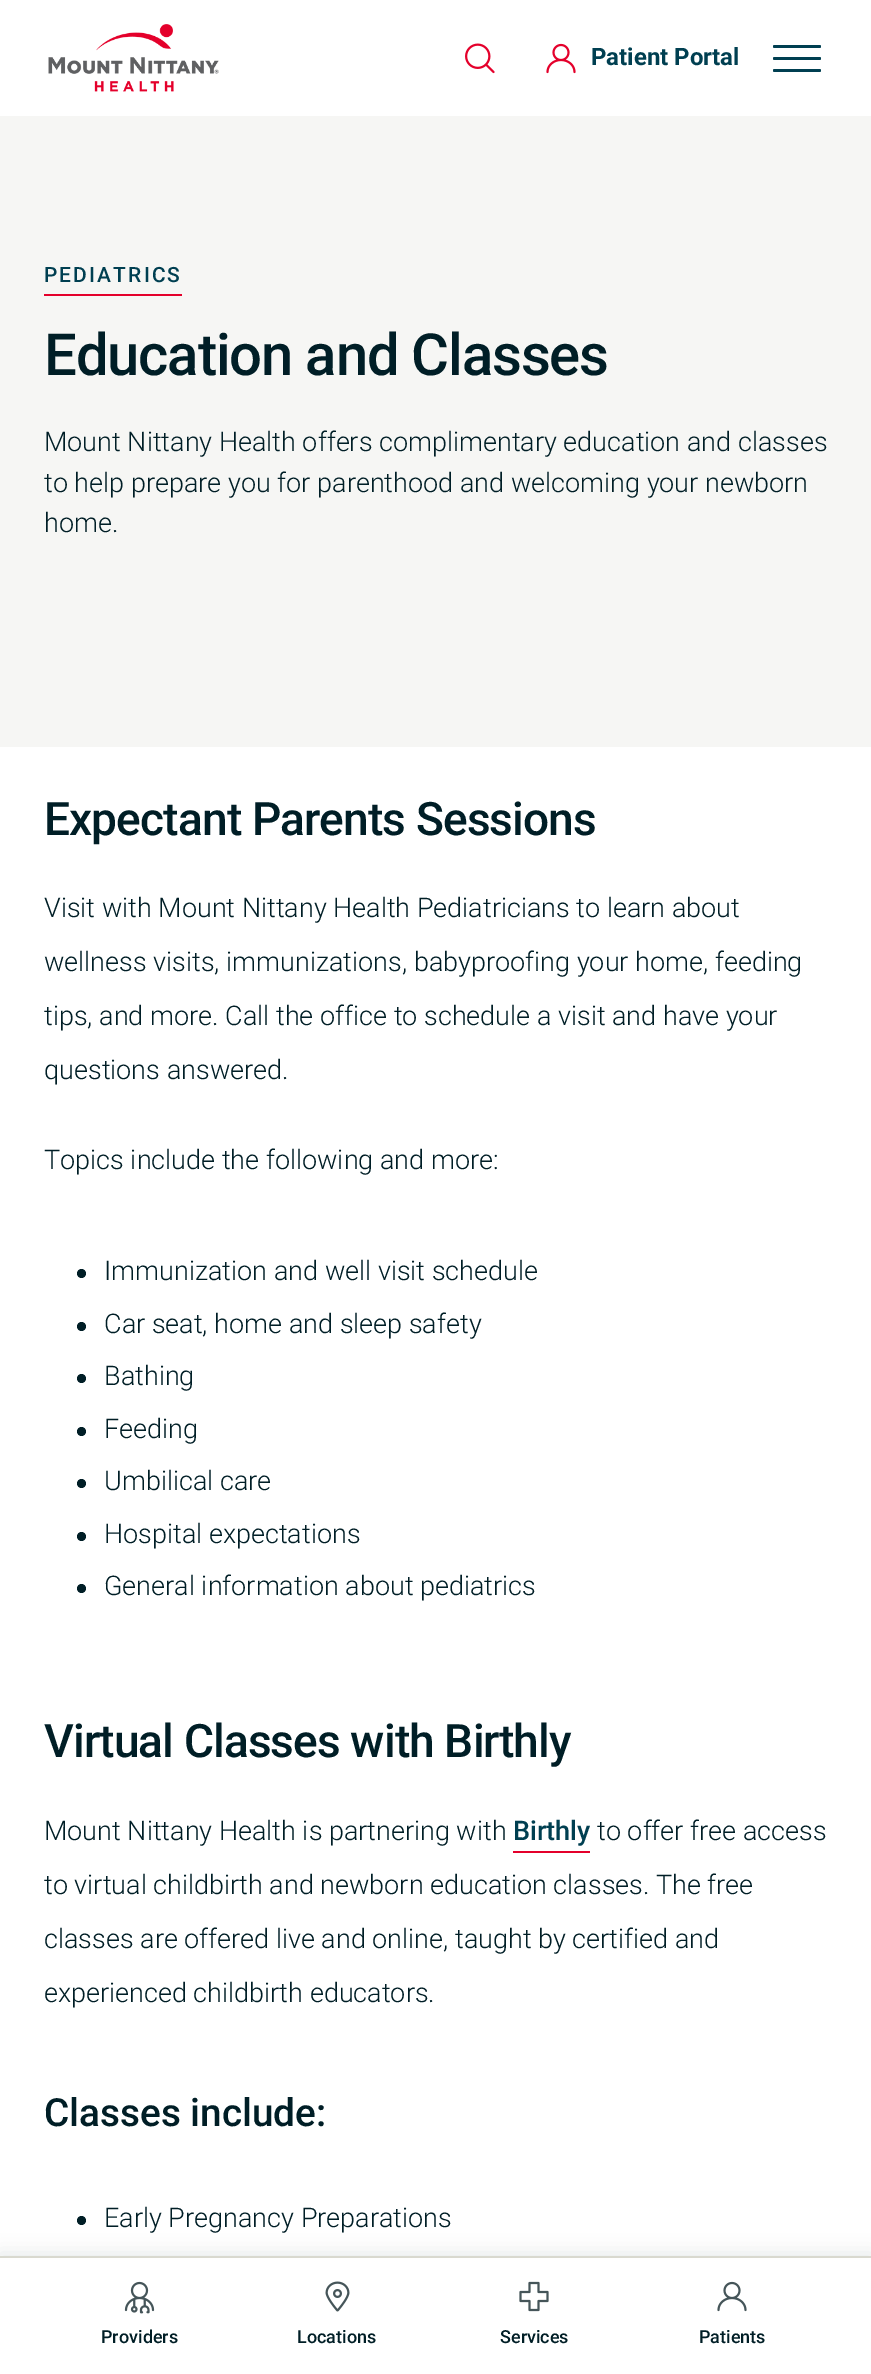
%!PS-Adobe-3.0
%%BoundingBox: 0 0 871 2374
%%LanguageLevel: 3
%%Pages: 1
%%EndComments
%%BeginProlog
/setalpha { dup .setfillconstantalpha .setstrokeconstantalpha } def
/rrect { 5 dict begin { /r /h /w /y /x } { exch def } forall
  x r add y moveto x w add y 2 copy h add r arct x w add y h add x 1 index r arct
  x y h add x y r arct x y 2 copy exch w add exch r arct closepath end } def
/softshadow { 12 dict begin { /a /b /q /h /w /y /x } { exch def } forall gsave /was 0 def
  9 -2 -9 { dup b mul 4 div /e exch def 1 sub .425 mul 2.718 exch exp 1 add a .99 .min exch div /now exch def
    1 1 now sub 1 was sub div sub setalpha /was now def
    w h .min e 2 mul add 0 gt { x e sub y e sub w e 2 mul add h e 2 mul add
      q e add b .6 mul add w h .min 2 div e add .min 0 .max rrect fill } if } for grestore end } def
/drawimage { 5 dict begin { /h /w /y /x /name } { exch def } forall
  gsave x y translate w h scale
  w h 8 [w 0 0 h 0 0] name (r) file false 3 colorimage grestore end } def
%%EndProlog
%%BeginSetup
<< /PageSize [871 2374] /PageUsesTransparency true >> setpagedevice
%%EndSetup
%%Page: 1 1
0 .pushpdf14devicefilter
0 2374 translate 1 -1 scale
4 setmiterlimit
1 setgray
0 0 871 2374 rectfill
(images/1.raw) 48 24 171 68 drawimage
(images/2.raw) 465 43 30 31 drawimage
(images/3.raw) 546 43 30 31 drawimage
0 0.247 0.318 setrgbcolor
773 45 48 3 1.5 rrect fill
773 57 48 3 1.5 rrect fill
773 69 48 3 1.5 rrect fill
0.965 0.965 0.957 setrgbcolor
0 116 871 631 rectfill
0.894 0 0.169 setrgbcolor
44 294 138 2 rectfill
0 0.118 0.149 setrgbcolor
newpath 81.5 1273.5 4.5 0 360 arc closepath fill
newpath 81.5 1326.5 4.5 0 360 arc closepath fill
newpath 81.5 1378.5 4.5 0 360 arc closepath fill
newpath 81.5 1431.5 4.5 0 360 arc closepath fill
newpath 81.5 1483.5 4.5 0 360 arc closepath fill
newpath 81.5 1536.5 4.5 0 360 arc closepath fill
newpath 81.5 1588.5 4.5 0 360 arc closepath fill
0.894 0 0.169 setrgbcolor
513 1851 77 2 rectfill
0 0.118 0.149 setrgbcolor
newpath 81.5 2220.5 4.5 0 360 arc closepath fill
0 2253 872 119 0 9 0.1 softshadow
1 setgray
0 2258 871 116 rectfill
0.851 0.851 0.812 setrgbcolor
0 2256 871 2 rectfill
(images/4.raw) 124 2281 31 33 drawimage
(images/5.raw) 325 2281 25 31 drawimage
(images/6.raw) 519 2281 30 31 drawimage
(images/7.raw) 717 2281 30 31 drawimage
/Roboto-Bold [24 0 0 -24 0 0] selectfont
0 0.247 0.318 setrgbcolor
591 65 moveto (Patient Portal) show
/Roboto-Medium [21 0 0 -21 0 0] selectfont
44 282 moveto 2.1 0 (PEDIATRICS) ashow
/Roboto-Medium [58.1 0 0 -58.1 0 0] selectfont
0 0.118 0.149 setrgbcolor
44 375 moveto -1.2 0 (Education and Classes) ashow
/Roboto-Light [27 0 0 -27 0 0] selectfont
44 451 moveto (Mount Nittany Health offers complimentary education and classes) show
44 492 moveto (to help prepare you for parenthood and welcoming your newborn) show
44 532 moveto (home.) show
/Roboto-Medium [46.1 0 0 -46.1 0 0] selectfont
44 835 moveto -0.9 0 (Expectant Parents Sessions) ashow
/Roboto-Light [27 0 0 -27 0 0] selectfont
44 917 moveto (Visit with Mount Nittany Health Pediatricians to learn about) show
44 971 moveto (wellness visits, immunizations, babyproofing your home, feeding) show
44 1025 moveto (tips, and more. Call the office to schedule a visit and have your) show
44 1079 moveto (questions answered.) show
44 1169 moveto (Topics include the following and more:) show
104 1280 moveto (Immunization and well visit schedule) show
104 1333 moveto (Car seat, home and sleep safety) show
104 1385 moveto (Bathing) show
104 1438 moveto (Feeding) show
104 1490 moveto (Umbilical care) show
104 1543 moveto (Hospital expectations) show
104 1595 moveto (General information about pediatrics) show
/Roboto-Medium [46.1 0 0 -46.1 0 0] selectfont
44 1757 moveto -0.9 0 (Virtual Classes with Birthly) ashow
/Roboto-Light [27 0 0 -27 0 0] selectfont
44 1840 moveto (Mount Nittany Health is partnering with) show
/Roboto-Medium [27 0 0 -27 0 0] selectfont
0 0.247 0.318 setrgbcolor
513 1840 moveto (Birthly) show
/Roboto-Light [27 0 0 -27 0 0] selectfont
0 0.118 0.149 setrgbcolor
597 1840 moveto (to offer free access) show
44 1894 moveto (to virtual childbirth and newborn education classes. The free) show
44 1948 moveto (classes are offered live and online, taught by certified and) show
44 2002 moveto (experienced childbirth educators.) show
/Roboto-Medium [38.75 0 0 -38.75 0 0] selectfont
44 2126 moveto (Classes include:) show
/Roboto-Light [27 0 0 -27 0 0] selectfont
104 2227 moveto (Early Pregnancy Preparations) show
/Roboto-Medium [18 0 0 -18 0 0] selectfont
101 2343 moveto (Providers) show
297 2343 moveto (Locations) show
500 2343 moveto (Services) show
699 2343 moveto (Patients) show
.poppdf14devicefilter showpage
%%EOF
